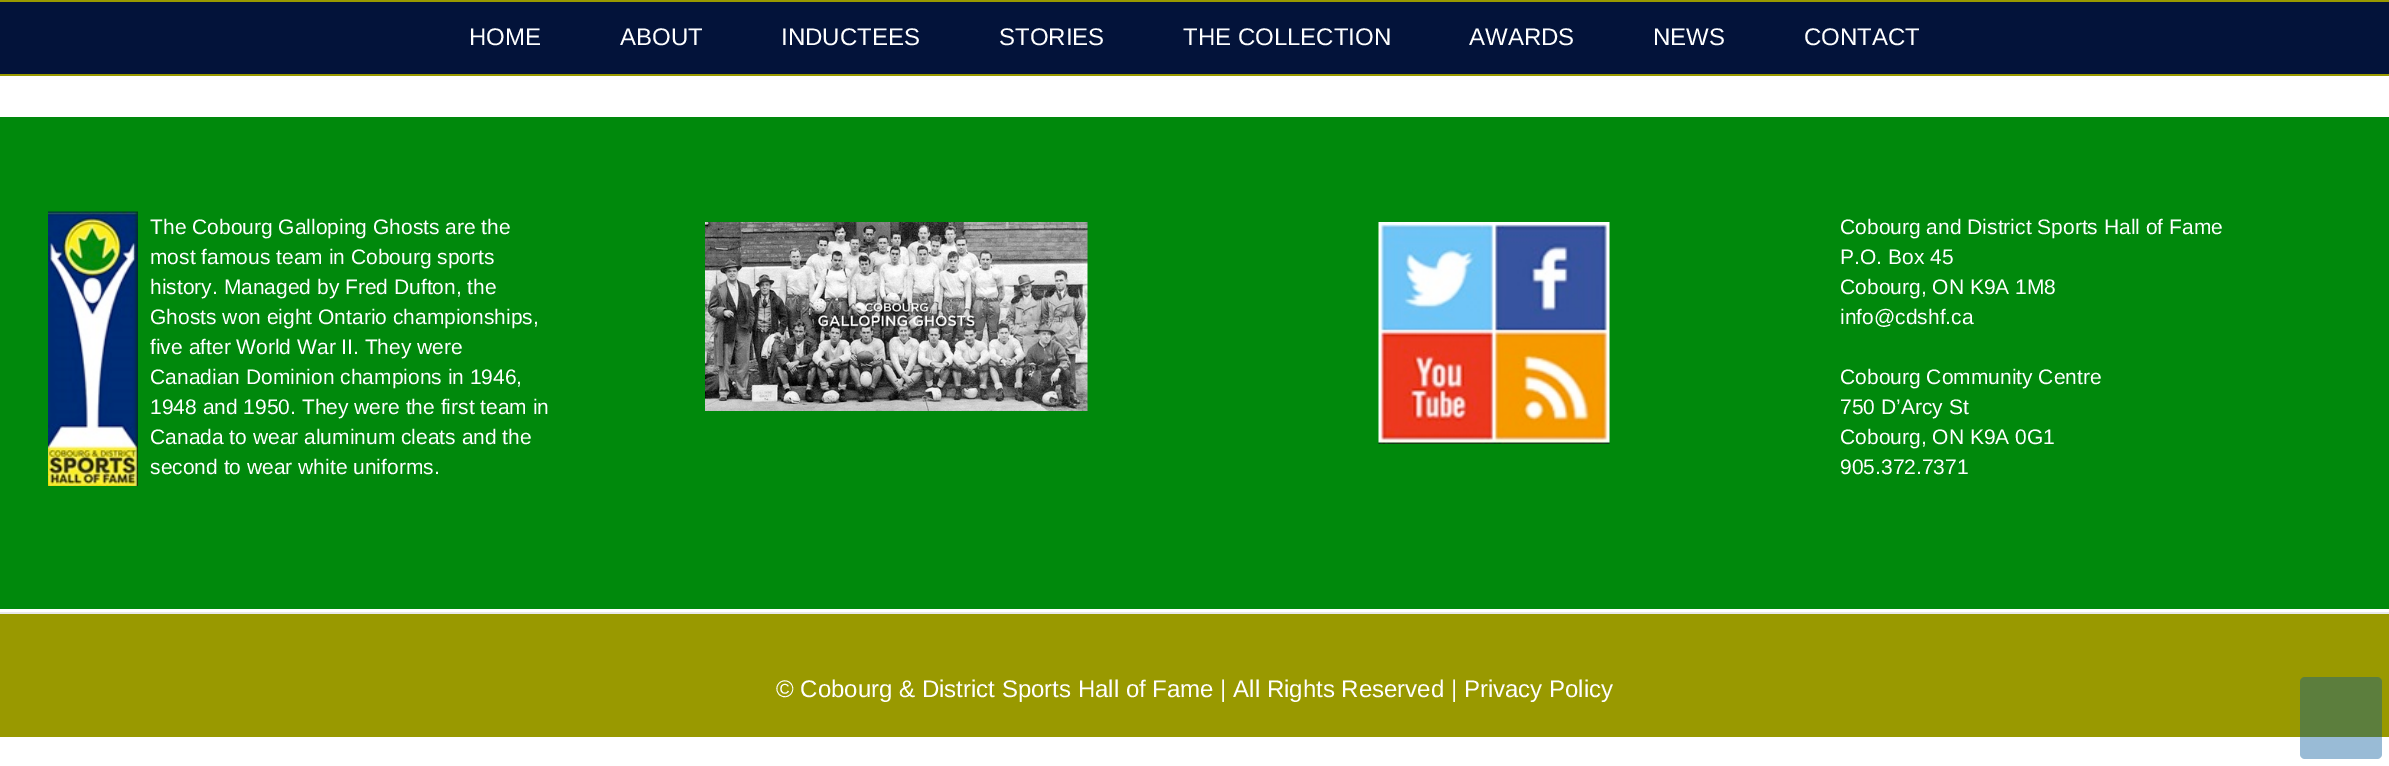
%!PS-Adobe-3.0
%%BoundingBox: 0 0 2389 766
%%LanguageLevel: 3
%%Pages: 1
%%EndComments
%%BeginProlog
/setalpha { dup .setfillconstantalpha .setstrokeconstantalpha } def
/rrect { 5 dict begin { /r /h /w /y /x } { exch def } forall
  x r add y moveto x w add y 2 copy h add r arct x w add y h add x 1 index r arct
  x y h add x y r arct x y 2 copy exch w add exch r arct closepath end } def
/drawimage { 5 dict begin { /h /w /y /x /name } { exch def } forall
  gsave x y translate w h scale
  w h 8 [w 0 0 h 0 0] name (r) file false 3 colorimage grestore end } def
%%EndProlog
%%BeginSetup
<< /PageSize [2389 766] /PageUsesTransparency true >> setpagedevice
%%EndSetup
%%Page: 1 1
0 .pushpdf14devicefilter
0 766 translate 1 -1 scale
4 setmiterlimit
1 setgray
0 0 2389 766 rectfill
0.012 0.075 0.227 setrgbcolor
0 2 2389 72 rectfill
0.6 0.6 0 setrgbcolor
0 0 2389 2 rectfill
0 74 2389 2 rectfill
0 0.537 0.047 setrgbcolor
0 117 2389 492 rectfill
(images/1.raw) 48 211 90 275 drawimage
(images/2.raw) 705 222 383 189 drawimage
(images/3.raw) 1378 222 232 222 drawimage
0.6 0.6 0 setrgbcolor
0 614 2389 123 rectfill
0.918 setgray
0 612 2389 2 rectfill
0.4 setalpha
0 0.333 0.6 setrgbcolor
2300 677 82 82 5 rrect fill
/LiberationSans-Regular [24 0 0 -24 0 0] selectfont
1 setalpha
1 setgray
469 45 moveto (HOME) show
620 45 moveto (ABOUT) show
781 45 moveto (INDUCTEES) show
999 45 moveto (STORIES) show
1183 45 moveto (THE COLLECTION) show
1469 45 moveto (AWARDS) show
1653 45 moveto (NEWS) show
1804 45 moveto (CONTACT) show
/LiberationSans-Regular [21 0 0 -21 0 0] selectfont
150 234 moveto (The Cobourg Galloping Ghosts are the) show
150 264 moveto (most famous team in Cobourg sports) show
150 294 moveto (history. Managed by Fred Dufton, the) show
150 324 moveto (Ghosts won eight Ontario championships,) show
150 354 moveto (five after World War II. They were) show
150 384 moveto (Canadian Dominion champions in 1946,) show
150 414 moveto (1948 and 1950. They were the first team in) show
150 444 moveto (Canada to wear aluminum cleats and the) show
150 474 moveto (second to wear white uniforms.) show
1840 234 moveto (Cobourg and District Sports Hall of Fame) show
1840 264 moveto (P.O. Box 45) show
1840 294 moveto (Cobourg, ON K9A 1M8) show
1840 324 moveto (info@cdshf.ca) show
1840 384 moveto (Cobourg Community Centre) show
1840 414 moveto (750 D’Arcy St) show
1840 444 moveto (Cobourg, ON K9A 0G1) show
1840 474 moveto (905.372.7371) show
/LiberationSans-Regular [24 0 0 -24 0 0] selectfont
776 697 moveto (© Cobourg & District Sports Hall of Fame | All Rights Reserved | Privacy Policy) show
.poppdf14devicefilter showpage
%%EOF
